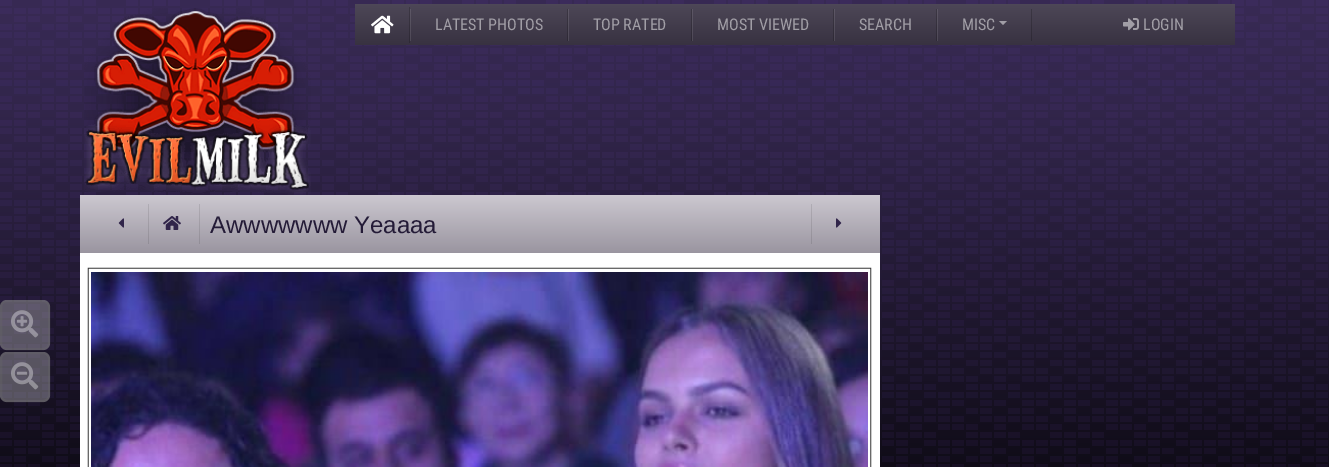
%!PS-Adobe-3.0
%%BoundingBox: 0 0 1329 467
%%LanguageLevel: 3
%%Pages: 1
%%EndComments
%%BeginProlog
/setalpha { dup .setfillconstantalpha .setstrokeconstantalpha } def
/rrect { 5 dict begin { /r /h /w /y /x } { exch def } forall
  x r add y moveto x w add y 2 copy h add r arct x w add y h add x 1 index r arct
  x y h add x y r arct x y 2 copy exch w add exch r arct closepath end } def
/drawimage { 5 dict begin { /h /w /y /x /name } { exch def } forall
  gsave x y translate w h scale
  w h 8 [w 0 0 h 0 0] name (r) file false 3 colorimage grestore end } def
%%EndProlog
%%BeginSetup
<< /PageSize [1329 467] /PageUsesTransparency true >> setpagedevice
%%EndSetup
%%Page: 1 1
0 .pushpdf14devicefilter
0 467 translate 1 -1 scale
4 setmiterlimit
1 setgray
0 0 1329 467 rectfill
(images/1.raw) 0 0 1329 467 drawimage
(images/2.raw) 84 8 227 187 drawimage
gsave newpath 355 4 moveto 1235 4 lineto 1235 45 lineto 355 45 lineto closepath clip newpath
<< /ShadingType 2 /ColorSpace /DeviceRGB /Coords [355 45 355 4] /Extend [true true] /Function << /FunctionType 2 /Domain [0 1] /C0 [0.22 0.196 0.255] /C1 [0.302 0.278 0.341] /N 1 >> >> shfill grestore
0.2 setalpha
0 setgray
409 7 1 36 rectfill
1 setalpha
(images/3.raw) 371 15 23 19 drawimage
0.2 setalpha
567 9 1 32 rectfill
0.1 setalpha
1 setgray
410 9 1 32 rectfill
0.2 setalpha
0 setgray
691 9 1 32 rectfill
0.1 setalpha
1 setgray
568 9 1 32 rectfill
0.2 setalpha
0 setgray
833 9 1 32 rectfill
0.1 setalpha
1 setgray
692 9 1 32 rectfill
0.2 setalpha
0 setgray
936 9 1 32 rectfill
0.1 setalpha
1 setgray
834 9 1 32 rectfill
0.2 setalpha
0 setgray
1031 9 1 32 rectfill
0.1 setalpha
1 setgray
937 9 1 32 rectfill
1 setalpha
0.631 0.62 0.651 setrgbcolor
newpath 999 21 moveto 1007 21 lineto 1003 25 lineto closepath fill
(images/4.raw) 1123 18 16 13 drawimage
1 setgray
80 253 800 214 rectfill
gsave newpath 80 195 moveto 880 195 lineto 880 253 lineto 80 253 lineto closepath clip newpath
<< /ShadingType 2 /ColorSpace /DeviceRGB /Coords [80 253 80 195] /Extend [true true] /Function << /FunctionType 2 /Domain [0 1] /C0 [0.604 0.584 0.627] /C1 [0.8 0.784 0.816] /N 1 >> >> shfill grestore
0.1 setalpha
0 setgray
148 204 1 40 rectfill
1 setalpha
(images/5.raw) 118 218 6 10 drawimage
0.1 setalpha
199 204 1 40 rectfill
1 setalpha
(images/6.raw) 163 216 18 14 drawimage
0.1 setalpha
811 204 1 40 rectfill
1 setalpha
(images/7.raw) 836 218 6 10 drawimage
0.2 setgray
0.7 setlinewidth
88.35 268.35 782.3 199.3 rectstroke
(images/8.raw) 91 272 777 195 drawimage
0.35 setalpha
0.8 setgray
0 300 50 50 7 rrect fill
0.4 setgray
2 setlinewidth
1 301 48 48 6 rrect stroke
1 setalpha
(images/9.raw) 11 310 28 28 drawimage
0.35 setalpha
0.8 setgray
0 352 50 50 7 rrect fill
0.4 setgray
1 353 48 48 6 rrect stroke
1 setalpha
(images/10.raw) 11 362 28 28 drawimage
/RobotoCondensed-Regular [16 0 0 -16 0 0] selectfont
0.631 0.62 0.651 setrgbcolor
435 30 moveto (LATEST PHOTOS) show
593 30 moveto (TOP RATED) show
717 30 moveto (MOST VIEWED) show
859 30 moveto (SEARCH) show
962 30 moveto (MISC) show
1143 30 moveto (LOGIN) show
/LiberationSans-Regular [24 0 0 -24 0 0] selectfont
0.141 0.106 0.216 setrgbcolor
210 233 moveto (Awwwwwww Yeaaaa) show
.poppdf14devicefilter showpage
%%EOF
